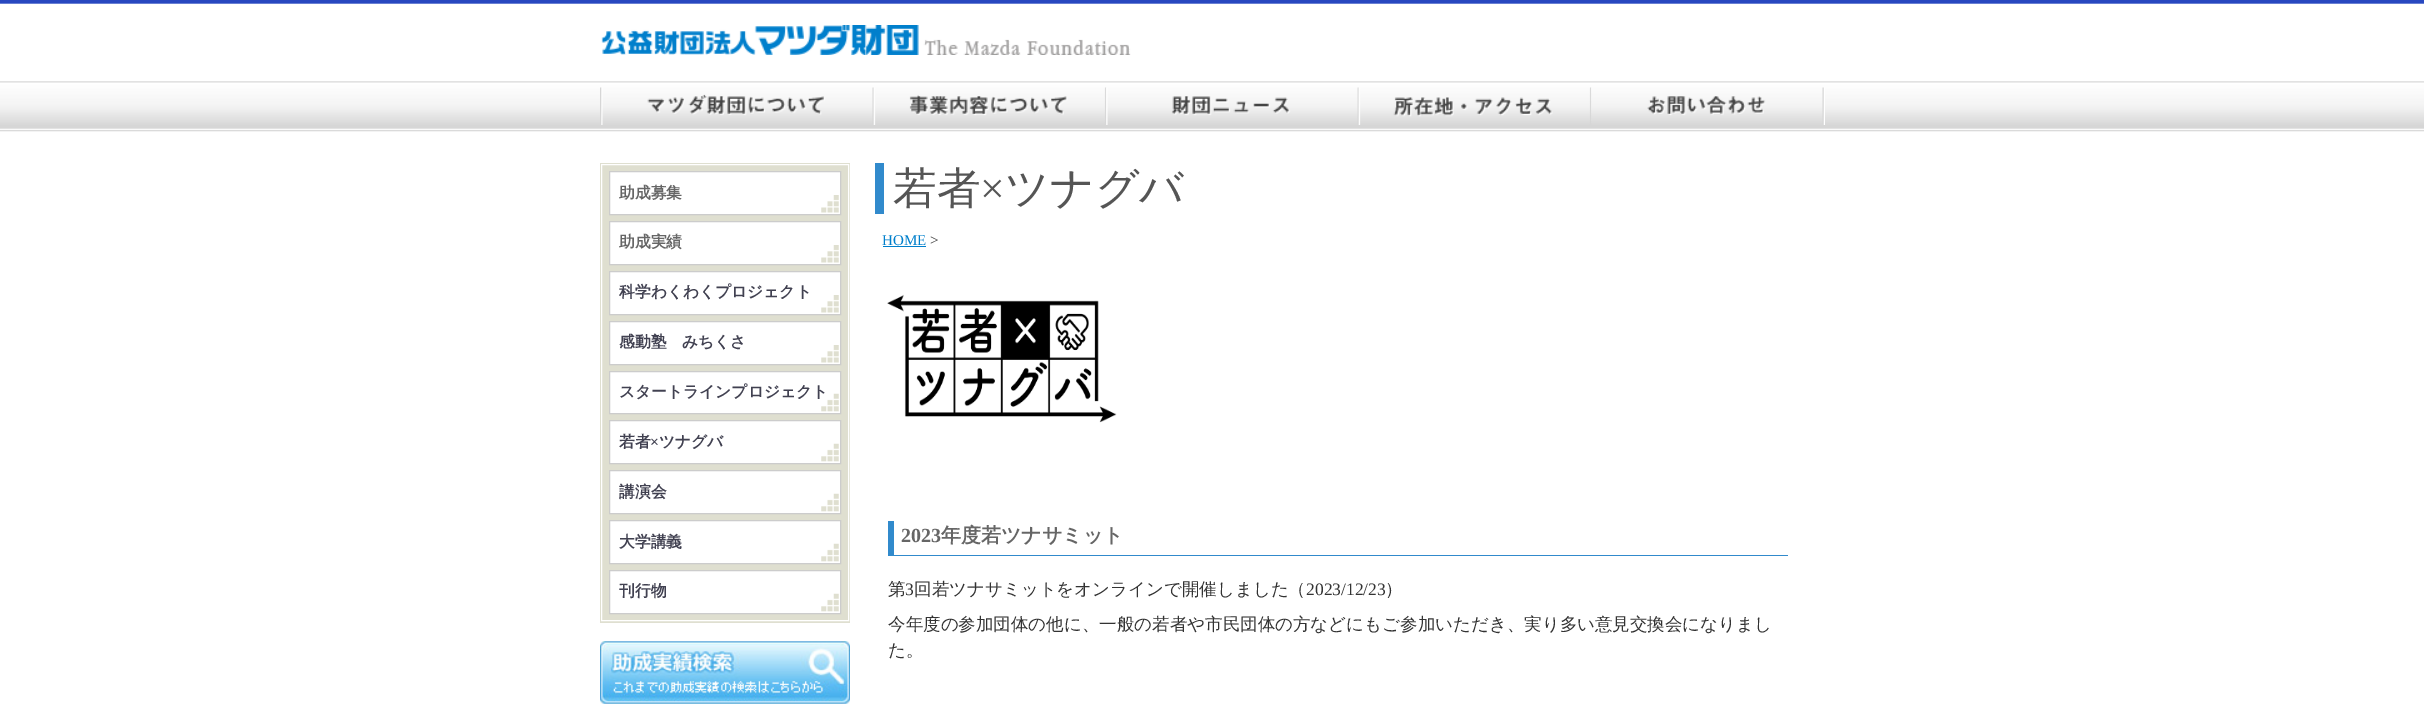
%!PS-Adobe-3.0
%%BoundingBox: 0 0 2424 710
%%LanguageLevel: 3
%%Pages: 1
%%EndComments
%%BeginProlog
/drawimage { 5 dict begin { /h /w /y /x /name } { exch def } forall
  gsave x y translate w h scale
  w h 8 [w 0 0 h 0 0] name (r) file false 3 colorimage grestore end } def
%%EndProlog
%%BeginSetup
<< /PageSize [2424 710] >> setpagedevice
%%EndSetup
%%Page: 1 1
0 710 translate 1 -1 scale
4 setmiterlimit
1 setgray
0 0 2424 710 rectfill
(images/1.raw) 0 0 2424 132 drawimage
(images/2.raw) 601 25 530 30 drawimage
(images/3.raw) 600 87 274 38 drawimage
(images/4.raw) 873 87 234 38 drawimage
(images/5.raw) 1106 87 253 38 drawimage
(images/6.raw) 1358 87 234 38 drawimage
(images/7.raw) 1591 87 234 38 drawimage
0.875 0.875 0.816 setrgbcolor
600 163 250 460 rectfill
1 setgray
601.5 164.5 247 456 rectstroke
610 172 230 42 rectfill
(images/8.raw) 821 195 18 18 drawimage
0.8 setgray
609.5 171.5 231 43 rectstroke
1 setgray
610 222 230 42 rectfill
(images/8.raw) 821 245 18 18 drawimage
0.8 setgray
609.5 221.5 231 43 rectstroke
1 setgray
610 272 230 42 rectfill
(images/8.raw) 821 295 18 18 drawimage
0.8 setgray
609.5 271.5 231 43 rectstroke
1 setgray
610 322 230 42 rectfill
(images/8.raw) 821 345 18 18 drawimage
0.8 setgray
609.5 321.5 231 43 rectstroke
1 setgray
610 372 230 41 rectfill
(images/9.raw) 821 393 18 19 drawimage
0.8 setgray
609.5 371.5 231 42 rectstroke
1 setgray
610 421 230 42 rectfill
(images/9.raw) 821 443 18 19 drawimage
0.8 setgray
609.5 420.5 231 43 rectstroke
1 setgray
610 471 230 42 rectfill
(images/9.raw) 821 493 18 19 drawimage
0.8 setgray
609.5 470.5 231 43 rectstroke
1 setgray
610 521 230 42 rectfill
(images/9.raw) 821 543 18 19 drawimage
0.8 setgray
609.5 520.5 231 43 rectstroke
1 setgray
610 571 230 42 rectfill
(images/9.raw) 821 593 18 19 drawimage
0.8 setgray
609.5 570.5 231 43 rectstroke
(images/10.raw) 600 641 250 63 drawimage
0.192 0.541 0.8 setrgbcolor
875 163 9 51 rectfill
0 0.498 0.8 setrgbcolor
883 246 43 1 rectfill
(images/11.raw) 887 294 230 129 drawimage
0.192 0.541 0.8 setrgbcolor
888 555 900 1 rectfill
888 521 6 35 rectfill
/WenQuanYiZenHei-Bold [15.75 0 0 -15.75 0 0] selectfont
0.4 setgray
619 198 moveto (助成募集) show
619 247 moveto (助成実績) show
0.255 0.255 0.318 setrgbcolor
619 297 moveto (科学わくわくプロジェクト) show
619 347 moveto (感動塾　みちくさ) show
619 397 moveto (スタートラインプロジェクト) show
619 447 moveto (若者) show
/LiberationSerif-Bold [15.75 0 0 -15.75 0 0] selectfont
650 447 moveto (×) show
/WenQuanYiZenHei-Bold [15.75 0 0 -15.75 0 0] selectfont
659 447 moveto (ツナグバ) show
619 497 moveto (講演会) show
619 547 moveto (大学講義) show
619 596 moveto (刊行物) show
/WenQuanYiZenHei-Medium [43.75 0 0 -43.75 0 0] selectfont
0.333 setgray
893 203 moveto (若者) show
/LiberationSerif-Regular [43.75 0 0 -43.75 0 0] selectfont
980 203 moveto (×) show
/WenQuanYiZenHei-Medium [43.75 0 0 -43.75 0 0] selectfont
1005 203 moveto (ツナグバ) show
/LiberationSerif-Regular [15 0 0 -15 0 0] selectfont
0 0.498 0.8 setrgbcolor
882 245 moveto (HOME) show
0.2 setgray
930 245 moveto (>) show
/LiberationSerif-Bold [20 0 0 -20 0 0] selectfont
0.4 setgray
901 542 moveto (2023) show
/WenQuanYiZenHei-Bold [20 0 0 -20 0 0] selectfont
941 542 moveto (年度若ツナサミット) show
/WenQuanYiZenHei-Medium [17.5 0 0 -17.5 0 0] selectfont
0.2 setgray
888 595 moveto (第) show
/LiberationSerif-Regular [17.5 0 0 -17.5 0 0] selectfont
905 595 moveto (3) show
/WenQuanYiZenHei-Medium [17.5 0 0 -17.5 0 0] selectfont
914 595 moveto (回若ツナサミットをオンラインで開催しました（) show
/LiberationSerif-Regular [17.5 0 0 -17.5 0 0] selectfont
1306 595 moveto (2023/12/23) show
/WenQuanYiZenHei-Medium [17.5 0 0 -17.5 0 0] selectfont
1385 595 moveto (）) show
888 630 moveto (今年度の参加団体の他に、一般の若者や市民団体の方などにもご参加いただき、実り多い意見交換会になりまし) show
888 656 moveto (た。) show
showpage
%%EOF
